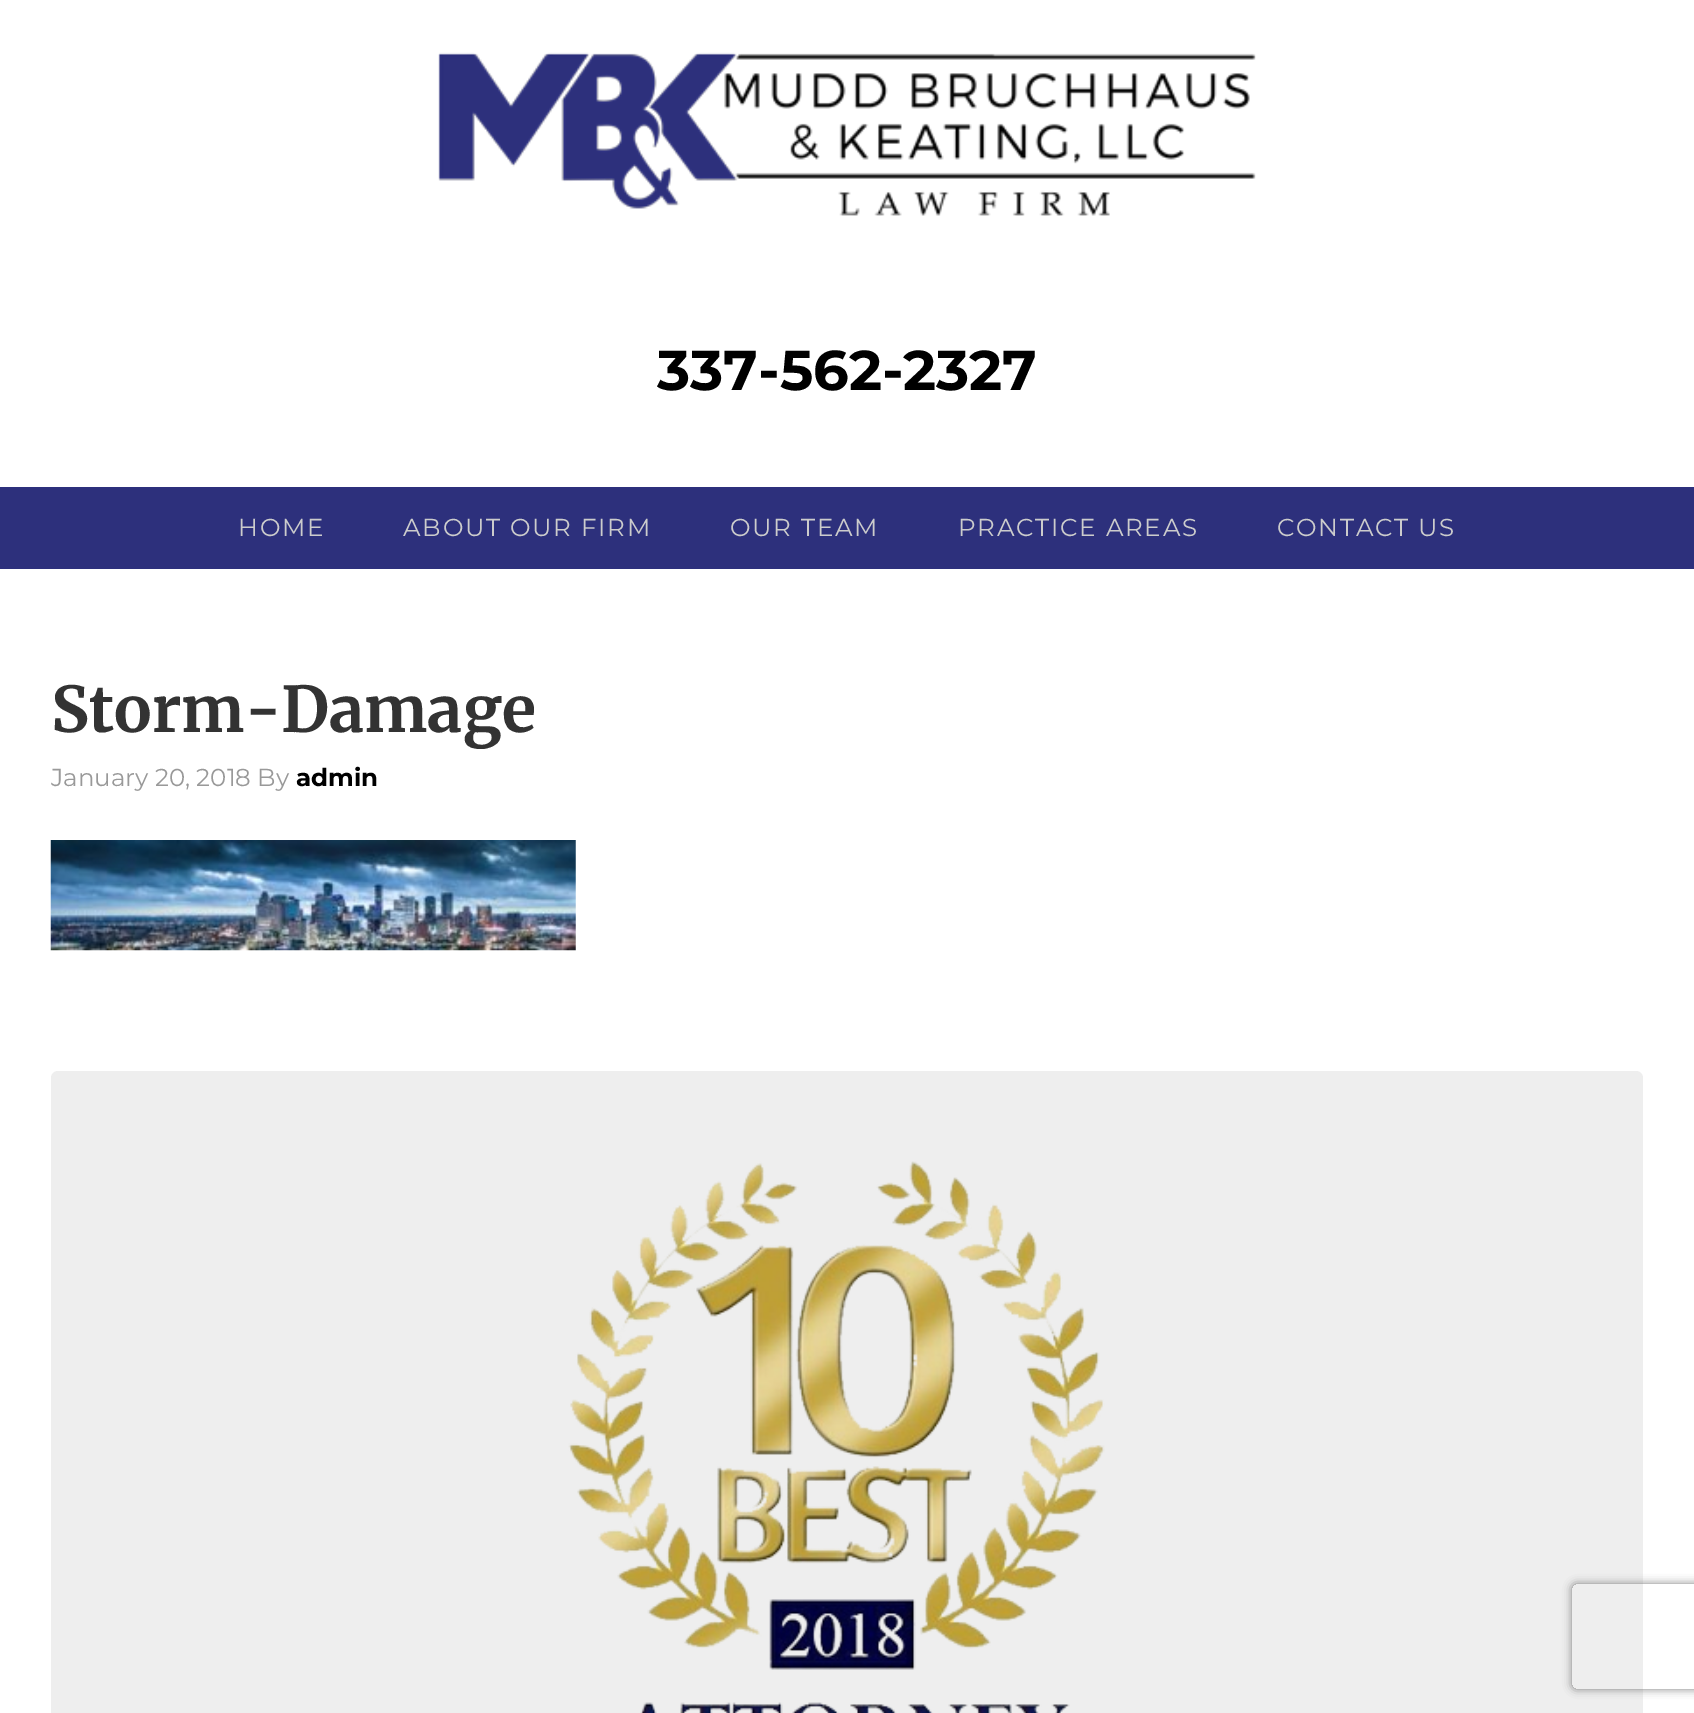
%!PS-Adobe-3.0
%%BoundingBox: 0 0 1694 1713
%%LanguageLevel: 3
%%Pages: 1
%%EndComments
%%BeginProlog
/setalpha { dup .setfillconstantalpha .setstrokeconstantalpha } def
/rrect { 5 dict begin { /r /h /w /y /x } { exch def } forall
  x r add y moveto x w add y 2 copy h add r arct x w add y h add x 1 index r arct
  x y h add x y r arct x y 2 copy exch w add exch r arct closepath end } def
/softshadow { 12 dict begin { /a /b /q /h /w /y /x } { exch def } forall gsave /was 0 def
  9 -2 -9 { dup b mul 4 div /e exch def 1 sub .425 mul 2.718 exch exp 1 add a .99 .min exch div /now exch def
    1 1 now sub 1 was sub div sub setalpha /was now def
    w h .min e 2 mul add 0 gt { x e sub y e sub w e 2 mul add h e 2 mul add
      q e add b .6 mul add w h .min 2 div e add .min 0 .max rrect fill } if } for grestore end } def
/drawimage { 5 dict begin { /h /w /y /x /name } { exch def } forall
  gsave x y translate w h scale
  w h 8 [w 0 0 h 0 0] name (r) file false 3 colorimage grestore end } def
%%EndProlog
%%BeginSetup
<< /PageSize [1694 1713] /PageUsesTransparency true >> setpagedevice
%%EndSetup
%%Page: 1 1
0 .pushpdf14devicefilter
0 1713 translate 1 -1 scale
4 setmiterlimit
1 setgray
0 0 1694 1713 rectfill
(images/1.raw) 438 52 818 164 drawimage
0.176 0.188 0.486 setrgbcolor
0 487 1694 82 rectfill
(images/2.raw) 50 840 526 111 drawimage
0.933 setgray
51 1071 1592 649 7 rrect fill
(images/3.raw) 568 1161 537 552 drawimage
gsave
newpath 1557 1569 moveto 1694 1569 lineto 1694 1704 lineto 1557 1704 lineto closepath 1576 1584 moveto 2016 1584 lineto 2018 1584 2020 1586 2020 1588 curveto 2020 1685 lineto 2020 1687 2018 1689 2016 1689 curveto 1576 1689 lineto 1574 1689 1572 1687 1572 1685 curveto 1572 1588 lineto 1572 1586 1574 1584 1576 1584 curveto closepath eoclip newpath
0.502 setgray
1572 1584 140 105 4 4.5 1 softshadow
grestore
/Montserrat-Bold [56 0 0 -56 0 0] selectfont
0 setgray
657 390 moveto (337-562-2327) show
/Montserrat-Regular [24.5 0 0 -24.5 0 0] selectfont
0.8 setgray
238 536 moveto 1.75 0 (HOME) ashow
403 536 moveto 1.75 0 (ABOUT OUR FIRM) ashow
730 536 moveto 1.75 0 (OUR TEAM) ashow
958 536 moveto 1.75 0 (PRACTICE AREAS) ashow
1277 536 moveto 1.75 0 (CONTACT US) ashow
/Merriweather-Bold [63 0 0 -63 0 0] selectfont
0.2 setgray
51 732 moveto (Storm-Damage) show
/Montserrat-Regular [24.5 0 0 -24.5 0 0] selectfont
0.6 setgray
51 786 moveto (January 20, 2018 By) show
/Montserrat-Bold [24.5 0 0 -24.5 0 0] selectfont
0 setgray
296 786 moveto (admin) show
.poppdf14devicefilter showpage
%%EOF
